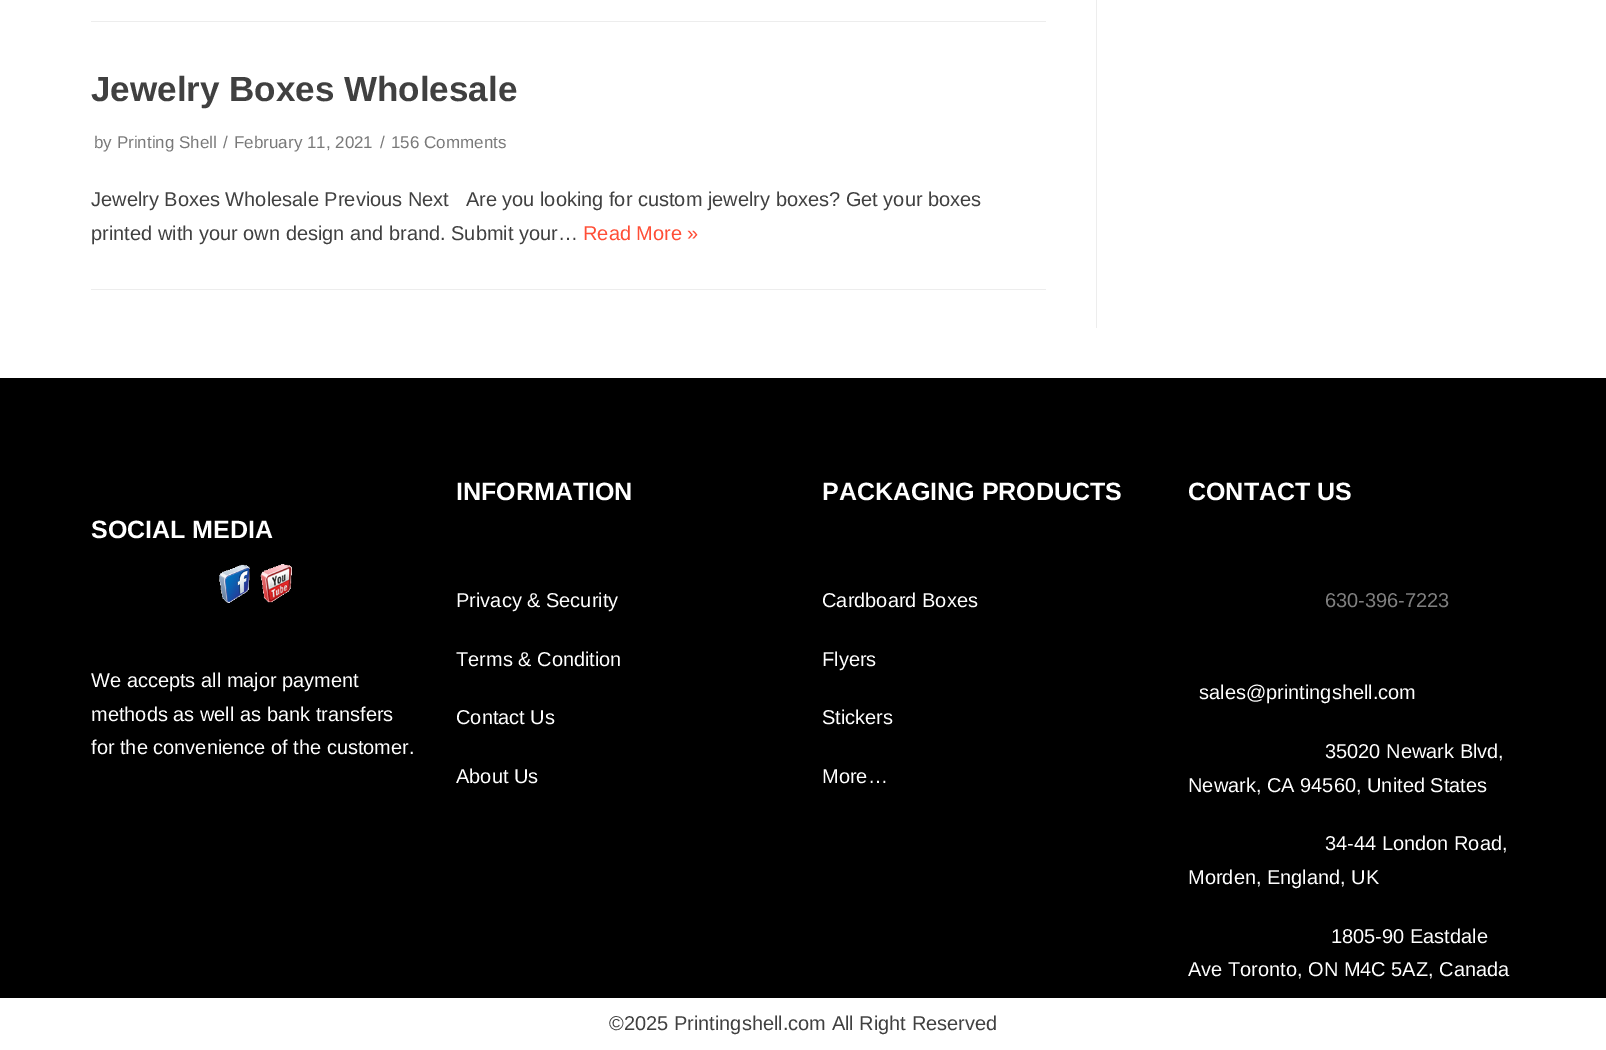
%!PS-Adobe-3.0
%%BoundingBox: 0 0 1606 1050
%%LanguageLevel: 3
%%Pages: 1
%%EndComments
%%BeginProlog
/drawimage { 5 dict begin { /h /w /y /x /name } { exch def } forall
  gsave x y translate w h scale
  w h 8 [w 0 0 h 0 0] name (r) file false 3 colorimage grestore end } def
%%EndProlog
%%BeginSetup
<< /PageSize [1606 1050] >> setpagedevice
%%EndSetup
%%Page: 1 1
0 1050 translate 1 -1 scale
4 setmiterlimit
1 setgray
0 0 1606 1050 rectfill
0.929 setgray
91 21 955 1 rectfill
91 289 955 1 rectfill
1096 0 1 328 rectfill
0 setgray
0 378 1606 620 rectfill
(images/1.raw) 219 564 31 39 drawimage
(images/2.raw) 260 564 32 39 drawimage
/LiberationSans-Bold [35 0 0 -35 0 0] selectfont
0.251 setgray
91 101 moveto (Jewelry Boxes Wholesale) show
/LiberationSans-Regular [17 0 0 -17 0 0] selectfont
0.475 setgray
94 148 moveto (by Printing Shell) show
223 148 moveto (/) show
234 148 moveto (February 11, 2021) show
380 148 moveto (/) show
391 148 moveto (156 Comments) show
/LiberationSans-Regular [20 0 0 -20 0 0] selectfont
0.251 setgray
91 206 moveto (Jewelry Boxes Wholesale Previous Next   Are you looking for custom jewelry boxes? Get your boxes) show
91 240 moveto (printed with your own design and brand. Submit your…) show
1 0.306 0.212 setrgbcolor
583 240 moveto (Read More ») show
/LiberationSans-Bold [25 0 0 -25 0 0] selectfont
1 setgray
91 538 moveto (SOCIAL MEDIA) show
/LiberationSans-Regular [20 0 0 -20 0 0] selectfont
91 687 moveto (We accepts all major payment) show
91 721 moveto (methods as well as bank transfers) show
91 754 moveto (for the convenience of the customer.) show
/LiberationSans-Bold [25 0 0 -25 0 0] selectfont
456 500 moveto (INFORMATION) show
/LiberationSans-Regular [20 0 0 -20 0 0] selectfont
456 607 moveto (Privacy & Security) show
456 666 moveto (Terms & Condition) show
456 724 moveto (Contact Us) show
456 783 moveto (About Us) show
/LiberationSans-Bold [25 0 0 -25 0 0] selectfont
822 500 moveto (PACKAGING PRODUCTS) show
/LiberationSans-Regular [20 0 0 -20 0 0] selectfont
822 607 moveto (Cardboard Boxes) show
822 666 moveto (Flyers) show
822 724 moveto (Stickers) show
822 783 moveto (More…) show
/LiberationSans-Bold [25 0 0 -25 0 0] selectfont
1188 500 moveto (CONTACT US) show
/LiberationSans-Regular [20 0 0 -20 0 0] selectfont
0.502 setgray
1325 607 moveto (630-396-7223) show
1 setgray
1199 699 moveto (sales@printingshell.com) show
1325 758 moveto (35020 Newark Blvd,) show
1188 792 moveto (Newark, CA 94560, United States) show
1325 850 moveto (34-44 London Road,) show
1188 884 moveto (Morden, England, UK) show
1331 943 moveto (1805-90 Eastdale) show
1188 976 moveto (Ave Toronto, ON M4C 5AZ, Canada) show
0.251 setgray
609 1030 moveto (©2025 Printingshell.com All Right Reserved) show
showpage
%%EOF
